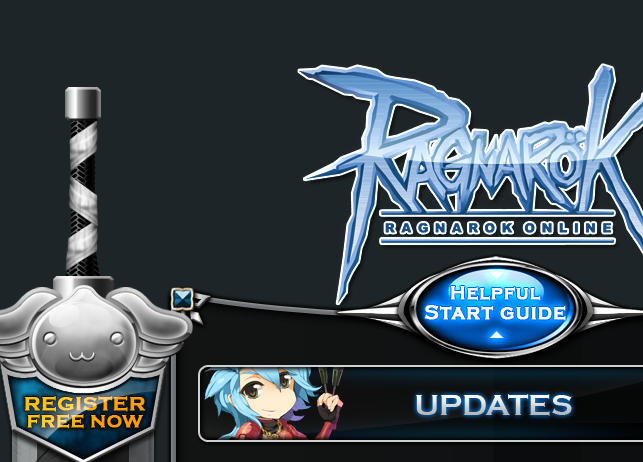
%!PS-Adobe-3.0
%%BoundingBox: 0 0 643 462
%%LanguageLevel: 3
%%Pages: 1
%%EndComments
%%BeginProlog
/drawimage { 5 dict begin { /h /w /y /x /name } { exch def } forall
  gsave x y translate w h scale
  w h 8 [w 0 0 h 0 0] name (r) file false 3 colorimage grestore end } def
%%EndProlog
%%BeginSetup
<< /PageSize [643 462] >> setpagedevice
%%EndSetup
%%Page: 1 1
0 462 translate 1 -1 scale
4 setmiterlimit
0.118 0.145 0.157 setrgbcolor
0 0 643 462 rectfill
(images/1.raw) 0 87 166 278 drawimage
(images/2.raw) 9 368 148 94 drawimage
(images/3.raw) 0 365 166 97 drawimage
(images/4.raw) 166 63 477 302 drawimage
(images/5.raw) 333 253 310 114 drawimage
(images/6.raw) 167 365 476 97 drawimage
(images/7.raw) 197 365 446 81 drawimage
showpage
%%EOF
